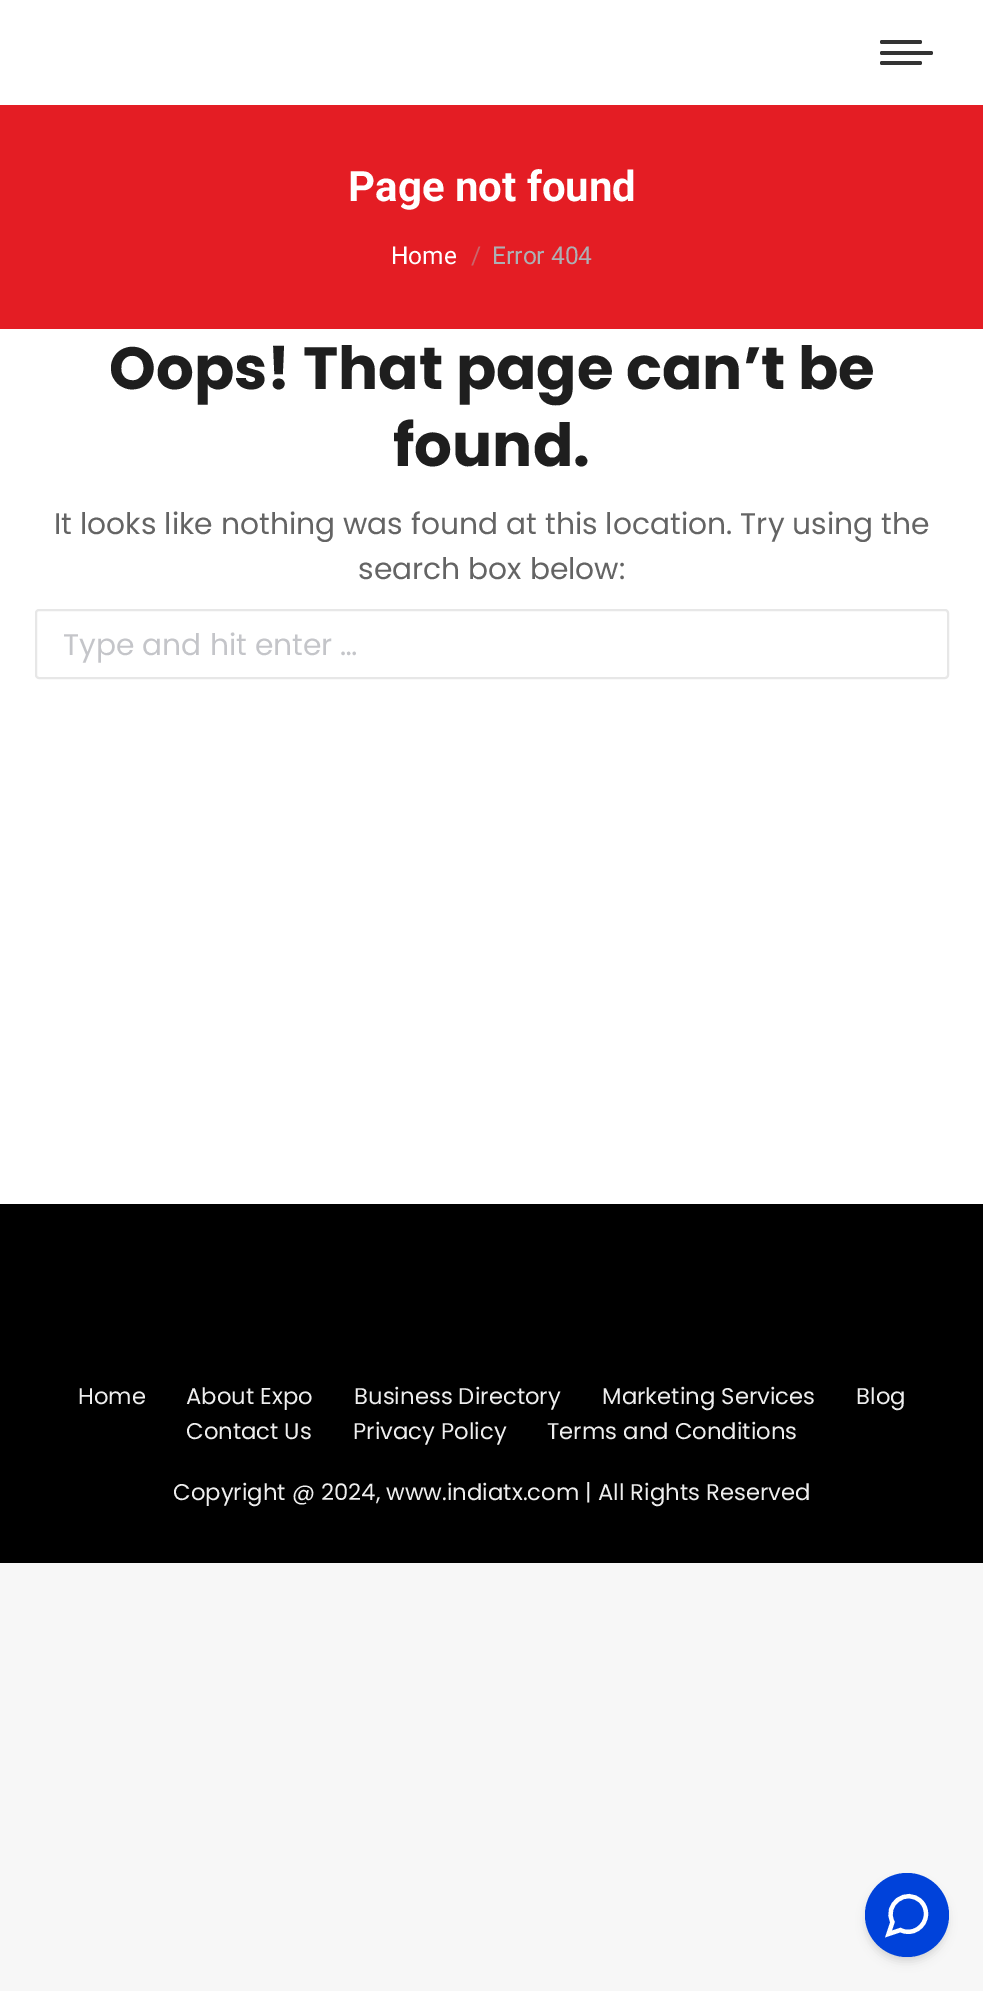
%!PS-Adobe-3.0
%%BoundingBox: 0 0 983 1991
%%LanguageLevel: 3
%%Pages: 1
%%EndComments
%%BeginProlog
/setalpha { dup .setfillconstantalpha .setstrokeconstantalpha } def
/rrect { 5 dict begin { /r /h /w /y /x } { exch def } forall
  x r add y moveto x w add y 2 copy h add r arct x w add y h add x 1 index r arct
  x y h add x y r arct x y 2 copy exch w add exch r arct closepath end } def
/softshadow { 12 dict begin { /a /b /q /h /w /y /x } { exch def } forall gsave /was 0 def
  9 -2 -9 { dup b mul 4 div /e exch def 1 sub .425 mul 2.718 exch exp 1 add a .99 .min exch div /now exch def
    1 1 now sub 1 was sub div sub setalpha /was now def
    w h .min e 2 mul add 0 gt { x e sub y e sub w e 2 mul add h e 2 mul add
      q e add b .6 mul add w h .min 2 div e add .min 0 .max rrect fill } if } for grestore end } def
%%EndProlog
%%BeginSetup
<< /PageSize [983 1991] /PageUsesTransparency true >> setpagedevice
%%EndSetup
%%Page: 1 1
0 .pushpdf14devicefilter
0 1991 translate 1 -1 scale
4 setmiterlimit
0.969 setgray
0 0 983 1991 rectfill
1 setgray
0 0 983 1204 rectfill
0.2 setgray
880 40 42 4 2 rrect fill
880 51 53 4 2 rrect fill
880 61 42 4 2 rrect fill
0.894 0.114 0.141 setrgbcolor
0 105 983 224 rectfill
0.906 setgray
2 setlinewidth
36 610 912 68 3 rrect stroke
0 setgray
0 1204 983 359 rectfill
868 1880 77 77 38.5 3.5 0.1 softshadow
866 1881 81 81 40.5 5 0.1 softshadow
0 0.259 0.855 setrgbcolor
newpath 907 1915 42 0 360 arc closepath fill
1 setgray
4.2 setlinewidth
newpath 926 1914 moveto 926 1927 912 1936 900.5 1930 curveto 888.5 1934 lineto 892.5 1922 lineto 883.5 1904.5 906.5 1887 921 1901.5 curveto 924.5 1905 926 1909.5 926 1914 curveto closepath stroke
/Roboto-Bold [42 0 0 -42 0 0] selectfont
348 201 moveto (Page not found) show
/Roboto-Regular [24.5 0 0 -24.5 0 0] selectfont
391 264 moveto (Home) show
0.788 0.4 0.424 setrgbcolor
471 264 moveto (/) show
0.678 0.686 0.702 setrgbcolor
492 264 moveto (Error 404) show
/Poppins-Bold [59.5 0 0 -59.5 0 0] selectfont
0.118 setgray
109 389 moveto (Oops! That page can’t be) show
393 466 moveto (found.) show
/Poppins-Regular [29.75 0 0 -29.75 0 0] selectfont
0.392 setgray
54 534 moveto (It looks like nothing was found at this location. Try using the) show
358 579 moveto (search box below:) show
0.769 0.773 0.788 setrgbcolor
63 655 moveto (Type and hit enter …) show
/Poppins-Regular [22.75 0 0 -22.75 0 0] selectfont
0.933 setgray
78 1404 moveto (Home) show
186 1404 moveto (About Expo) show
354 1404 moveto (Business Directory) show
602 1404 moveto (Marketing Services) show
856 1404 moveto (Blog) show
186 1439 moveto (Contact Us) show
353 1439 moveto (Privacy Policy) show
547 1439 moveto (Terms and Conditions) show
173 1500 moveto (Copyright @ 2024, www.indiatx.com | All Rights Reserved) show
.poppdf14devicefilter showpage
%%EOF
